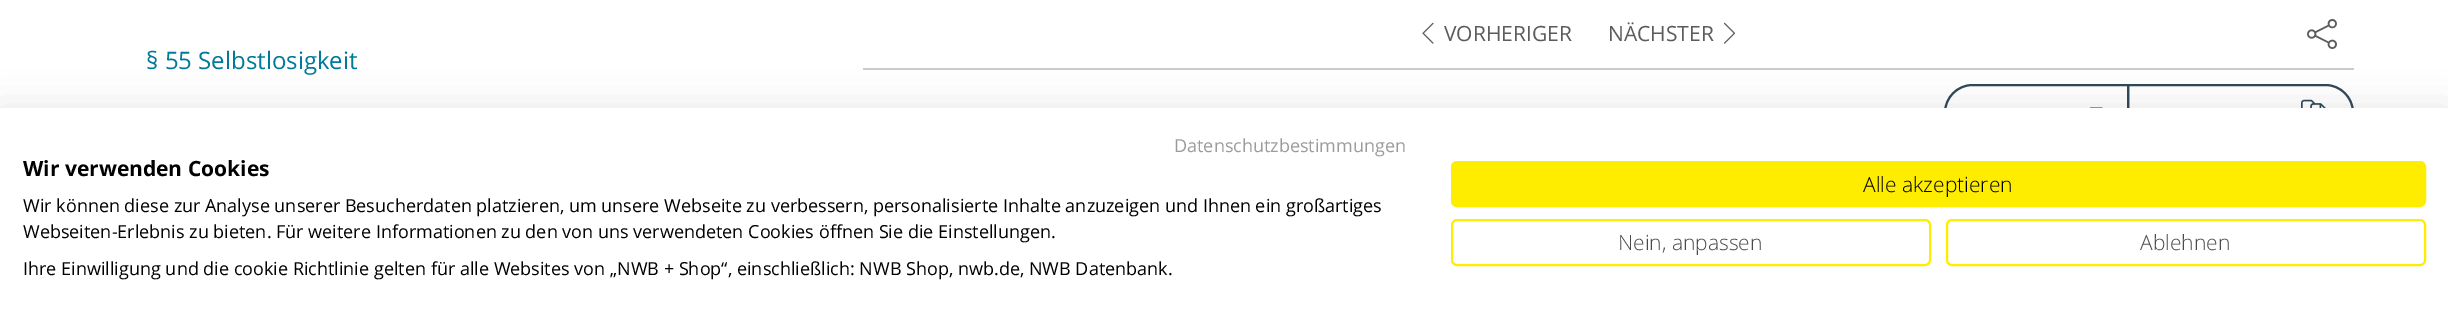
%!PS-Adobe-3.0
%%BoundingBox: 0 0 2448 310
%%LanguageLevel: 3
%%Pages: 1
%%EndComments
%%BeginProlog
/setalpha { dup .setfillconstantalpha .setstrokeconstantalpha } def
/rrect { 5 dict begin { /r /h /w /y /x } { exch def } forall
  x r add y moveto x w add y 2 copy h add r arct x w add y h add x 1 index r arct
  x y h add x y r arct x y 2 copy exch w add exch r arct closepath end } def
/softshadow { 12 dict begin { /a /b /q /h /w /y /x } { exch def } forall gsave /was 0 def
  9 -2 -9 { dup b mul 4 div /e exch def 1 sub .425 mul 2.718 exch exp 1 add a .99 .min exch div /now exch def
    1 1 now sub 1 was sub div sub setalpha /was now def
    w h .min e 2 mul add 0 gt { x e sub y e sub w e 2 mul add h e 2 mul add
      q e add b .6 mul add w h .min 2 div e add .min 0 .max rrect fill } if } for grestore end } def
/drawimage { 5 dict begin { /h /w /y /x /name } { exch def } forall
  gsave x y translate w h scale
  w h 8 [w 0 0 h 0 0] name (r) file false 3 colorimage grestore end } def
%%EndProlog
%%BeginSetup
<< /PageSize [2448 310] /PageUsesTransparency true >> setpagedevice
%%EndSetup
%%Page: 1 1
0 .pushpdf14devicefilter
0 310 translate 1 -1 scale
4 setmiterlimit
1 setgray
0 0 2448 310 rectfill
0.8 setgray
863 68 1491 2 rectfill
(images/1.raw) 1422 22 12 22 drawimage
(images/2.raw) 1723 22 13 22 drawimage
(images/3.raw) 2307 19 30 30 drawimage
0.184 0.282 0.345 setrgbcolor
2 setlinewidth
newpath 1972.5 85 moveto 2128 85 lineto 2128 140 lineto 1972.5 140 lineto 1957.5 140 1945 127.5 1945 112.5 curveto 1945 97.5 1957.5 85 1972.5 85 curveto closepath stroke
newpath 2096 121 moveto 2090 107.5 lineto 2102.5 107.5 lineto closepath fill
newpath 2128 85 moveto 2325.5 85 lineto 2340.5 85 2353 97.5 2353 112.5 curveto 2353 127.5 2340.5 140 2325.5 140 curveto 2128 140 lineto closepath stroke
(images/4.raw) 2301 99 25 9 drawimage
0 setgray
0 108 2448 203 0 18 0.1 softshadow
1 setgray
0 108 2448 202 rectfill
1 0.929 0 setrgbcolor
1452 162 973 44 5 rrect gsave fill grestore
stroke
1452 220 478 45 5 rrect stroke
1947 220 478 45 5 rrect stroke
/OpenSans-Regular [21 0 0 -21 0 0] selectfont
0.361 setgray
1444 41 moveto (VORHERIGER) show
1608 41 moveto (NÄCHSTER) show
/OpenSans-Regular [24 0 0 -24 0 0] selectfont
0 0.478 0.6 setrgbcolor
146 69 moveto (§ 55 Selbstlosigkeit) show
/OpenSans-Regular [18 0 0 -18 0 0] selectfont
0.608 setgray
1174 152 moveto (Datenschutzbestimmungen) show
/OpenSans-Bold [21 0 0 -21 0 0] selectfont
0 setgray
23 176 moveto (Wir verwenden Cookies) show
/OpenSans-Regular [18 0 0 -18 0 0] selectfont
23 212 moveto (Wir können diese zur Analyse unserer Besucherdaten platzieren, um unsere Webseite zu verbessern, personalisierte Inhalte anzuzeigen und Ihnen ein großartiges) show
23 238 moveto (Webseiten-Erlebnis zu bieten. Für weitere Informationen zu den von uns verwendeten Cookies öffnen Sie die Einstellungen.) show
23 275 moveto (Ihre Einwilligung und die cookie Richtlinie gelten für alle Websites von „NWB + Shop“, einschließlich: NWB Shop, nwb.de, NWB Datenbank.) show
/OpenSans-Light [21 0 0 -21 0 0] selectfont
1863 192 moveto (Alle akzeptieren) show
0.29 setgray
1618 250 moveto (Nein, anpassen) show
2140 250 moveto (Ablehnen) show
.poppdf14devicefilter showpage
%%EOF
